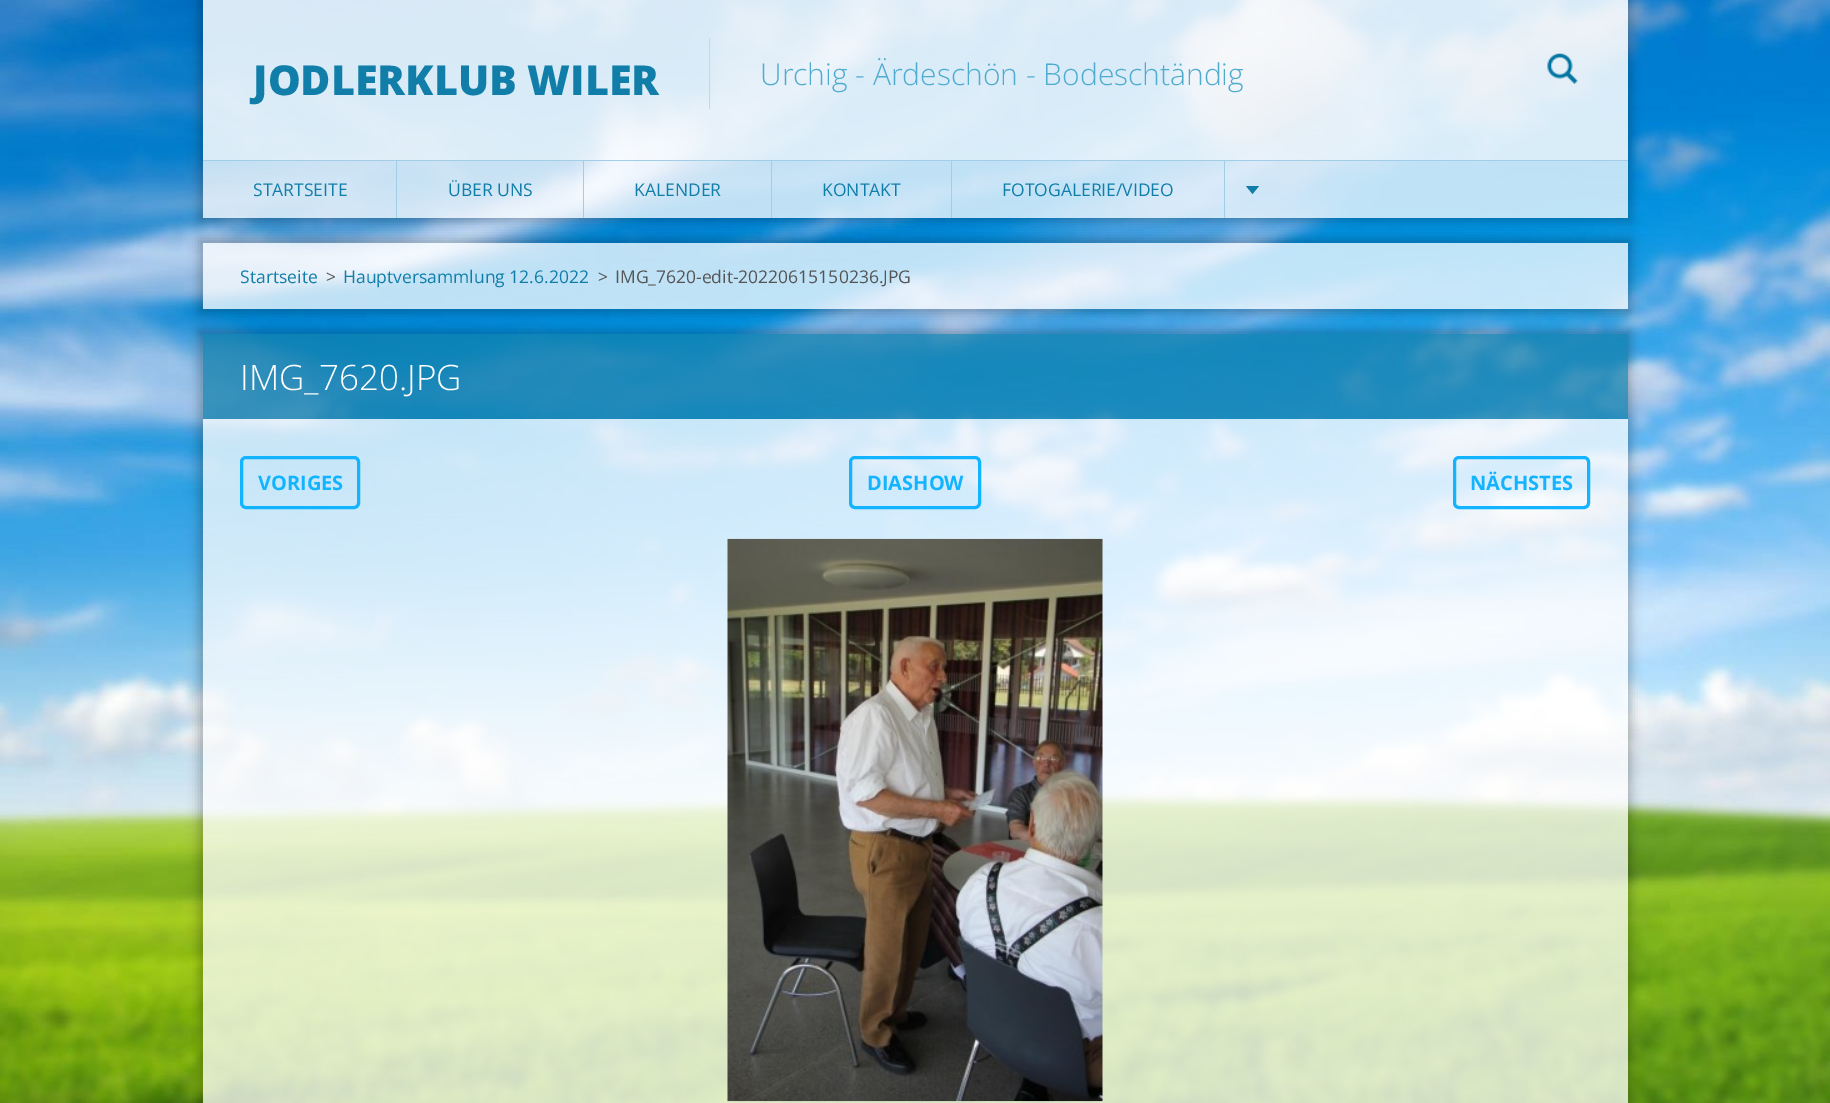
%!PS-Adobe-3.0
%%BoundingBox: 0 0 1830 1103
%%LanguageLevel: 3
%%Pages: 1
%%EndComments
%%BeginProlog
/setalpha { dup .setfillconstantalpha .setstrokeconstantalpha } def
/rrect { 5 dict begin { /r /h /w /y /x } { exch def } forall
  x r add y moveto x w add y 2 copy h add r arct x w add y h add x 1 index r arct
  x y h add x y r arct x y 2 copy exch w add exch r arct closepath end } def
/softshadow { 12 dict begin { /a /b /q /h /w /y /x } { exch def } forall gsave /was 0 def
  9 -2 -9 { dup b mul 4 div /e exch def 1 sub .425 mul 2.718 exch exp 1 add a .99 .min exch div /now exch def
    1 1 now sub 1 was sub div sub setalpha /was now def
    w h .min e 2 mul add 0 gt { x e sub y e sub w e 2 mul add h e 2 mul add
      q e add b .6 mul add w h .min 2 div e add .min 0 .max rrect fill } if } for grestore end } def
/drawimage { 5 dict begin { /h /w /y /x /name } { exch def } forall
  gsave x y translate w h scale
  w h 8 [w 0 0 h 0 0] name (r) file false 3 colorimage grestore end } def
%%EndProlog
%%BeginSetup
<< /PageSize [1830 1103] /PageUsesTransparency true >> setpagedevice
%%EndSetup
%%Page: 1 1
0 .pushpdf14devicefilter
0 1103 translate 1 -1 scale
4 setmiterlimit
1 setgray
0 0 1830 1103 rectfill
(images/1.raw) 0 0 1830 1103 drawimage
gsave
newpath 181 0 moveto 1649 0 lineto 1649 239 lineto 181 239 lineto closepath 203 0 moveto 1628 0 lineto 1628 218 lineto 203 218 lineto closepath eoclip newpath
0 setgray
199 -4 1432 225 0 5.5 0.25 softshadow
grestore
0.85 setalpha
203 0 1425 160 rectfill
1 setalpha
0.71 0.863 0.953 setrgbcolor
709 38 1 71 rectfill
(images/2.raw) 1547 53 31 31 drawimage
0.635 0.804 0.902 setrgbcolor
203 160 1425 1 rectfill
0.75 setalpha
1 setgray
203 161 1425 57 rectfill
1 setalpha
0.635 0.804 0.902 setrgbcolor
396 161 1 57 rectfill
583 161 1 57 rectfill
771 161 1 57 rectfill
951 161 1 57 rectfill
1224 161 1 57 rectfill
0.063 0.494 0.659 setrgbcolor
newpath 1246 186 moveto 1259 186 lineto 1252.5 194 lineto closepath fill
gsave
newpath 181 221 moveto 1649 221 lineto 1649 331 lineto 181 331 lineto closepath 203 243 moveto 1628 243 lineto 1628 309 lineto 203 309 lineto closepath eoclip newpath
0 setgray
199 239 1432 74 0 5.5 0.25 softshadow
grestore
0.75 setalpha
1 setgray
203 243 1425 66 rectfill
gsave
newpath 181 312 moveto 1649 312 lineto 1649 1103 lineto 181 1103 lineto closepath 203 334 moveto 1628 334 lineto 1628 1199 lineto 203 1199 lineto closepath eoclip newpath
1 setalpha
0 setgray
199 330 1432 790 0 5.5 0.25 softshadow
grestore
0.71 setalpha
0.063 0.494 0.659 setrgbcolor
203 334 1425 85 rectfill
0.75 setalpha
1 setgray
203 419 1425 684 rectfill
1 setalpha
0.075 0.706 1 setrgbcolor
3 setlinewidth
241.5 457.5 117 50 4.5 rrect stroke
850.5 457.5 129 50 4.5 rrect stroke
1454.5 457.5 134 50 4.5 rrect stroke
(images/3.raw) 727 538 376 564 drawimage
/OpenSans-ExtraBold [41.25 0 0 -41.25 0 0] selectfont
0.063 0.494 0.659 setrgbcolor
253 95 moveto (JODLERKLUB WILER) show
/OpenSans-Light [30 0 0 -30 0 0] selectfont
0.314 0.675 0.812 setrgbcolor
760 85 moveto (Urchig - Ärdeschön - Bodeschtändig) show
/OpenSans-Regular [17.5 0 0 -17.5 0 0] selectfont
0.063 0.494 0.659 setrgbcolor
253 196 moveto (STARTSEITE) show
448 196 moveto (ÜBER UNS) show
634 196 moveto (KALENDER) show
822 196 moveto (KONTAKT) show
1002 196 moveto (FOTOGALERIE/VIDEO) show
240 283 moveto (Startseite) show
0.333 setgray
326 283 moveto (>) show
0.063 0.494 0.659 setrgbcolor
343 283 moveto (Hauptversammlung 12.6.2022) show
0.333 setgray
598 283 moveto (>) show
615 283 moveto (IMG_7620-edit-20220615150236.JPG) show
/OpenSans-Light [35 0 0 -35 0 0] selectfont
1 setgray
240 390 moveto (IMG_7620.JPG) show
/OpenSans-Bold [20 0 0 -20 0 0] selectfont
0.075 0.706 1 setrgbcolor
258 490 moveto (VORIGES) show
867 490 moveto (DIASHOW) show
1470 490 moveto (NÄCHSTES) show
.poppdf14devicefilter showpage
%%EOF
